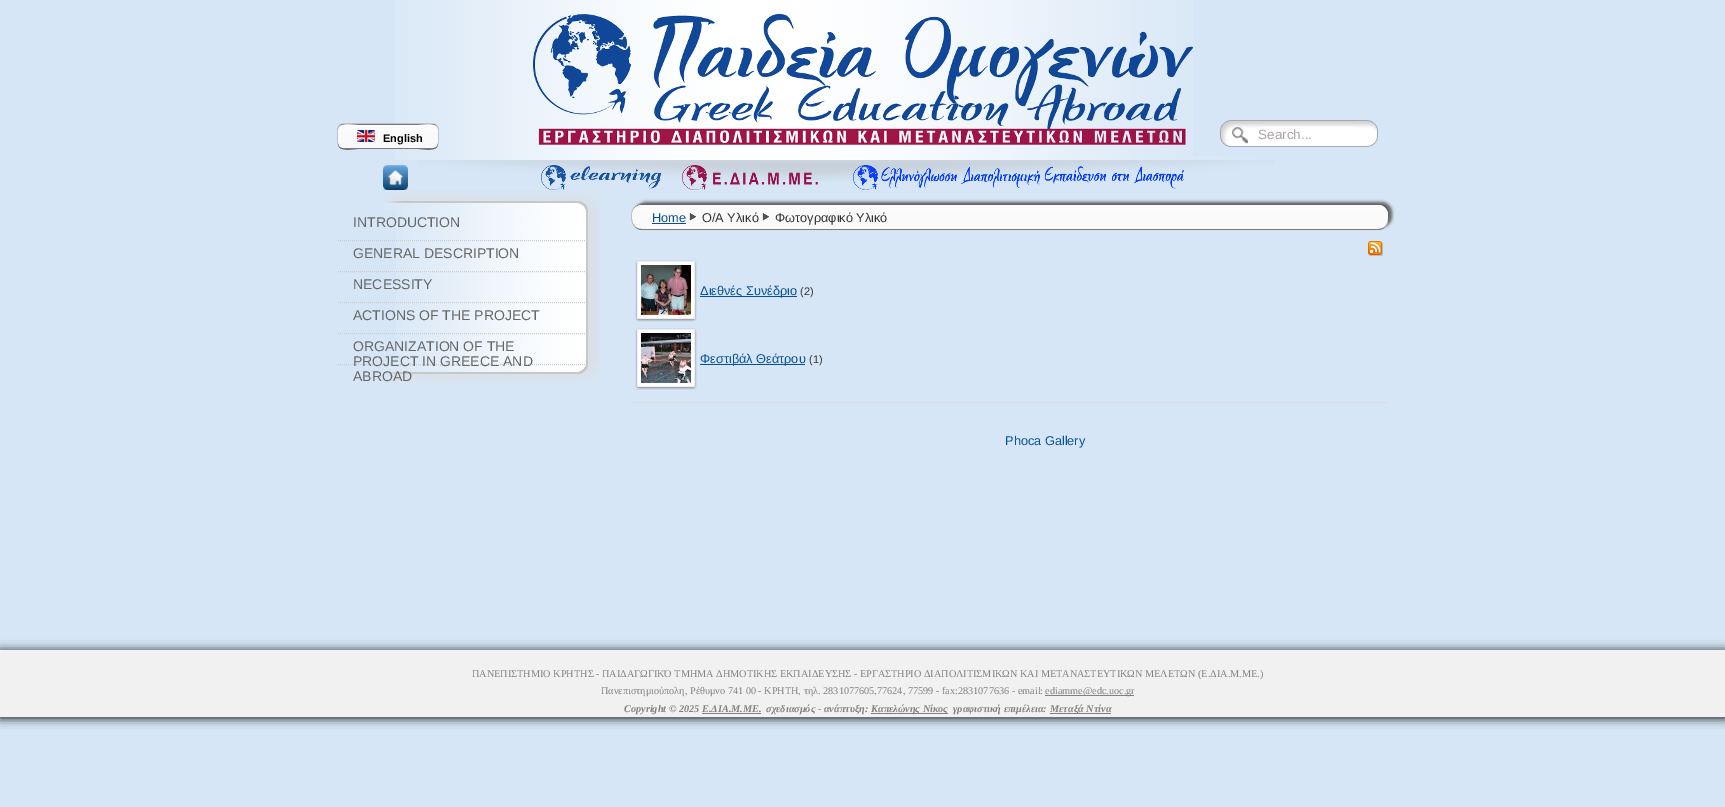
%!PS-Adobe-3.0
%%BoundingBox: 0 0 1725 807
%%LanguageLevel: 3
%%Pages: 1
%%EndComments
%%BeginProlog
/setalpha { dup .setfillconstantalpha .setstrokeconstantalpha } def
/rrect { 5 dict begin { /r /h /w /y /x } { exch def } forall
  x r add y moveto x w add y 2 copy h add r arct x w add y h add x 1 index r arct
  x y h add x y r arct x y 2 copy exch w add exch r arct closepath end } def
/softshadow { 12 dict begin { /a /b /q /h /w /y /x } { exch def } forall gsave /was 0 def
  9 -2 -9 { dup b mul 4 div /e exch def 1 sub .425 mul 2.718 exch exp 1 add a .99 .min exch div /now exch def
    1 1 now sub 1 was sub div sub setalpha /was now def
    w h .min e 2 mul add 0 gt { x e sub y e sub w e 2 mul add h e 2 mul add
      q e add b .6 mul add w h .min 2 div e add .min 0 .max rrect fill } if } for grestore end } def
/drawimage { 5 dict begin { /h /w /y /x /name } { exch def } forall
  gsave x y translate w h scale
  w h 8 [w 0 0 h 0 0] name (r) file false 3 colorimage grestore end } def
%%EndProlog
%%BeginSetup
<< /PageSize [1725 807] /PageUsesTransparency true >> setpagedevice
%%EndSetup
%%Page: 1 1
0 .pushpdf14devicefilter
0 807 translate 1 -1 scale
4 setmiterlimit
0.839 0.902 0.965 setrgbcolor
0 0 1725 807 rectfill
(images/1.raw) 417 156 858 25 drawimage
(images/2.raw) 395 0 798 160 drawimage
(images/3.raw) 533 14 660 131 drawimage
0.4 setgray
338 124 100 24 5 0.5 1 softshadow
(images/4.raw) 338 125 100 24 drawimage
0.8 setalpha
1 setgray
newpath 343 126 moveto 433 126 lineto 436 126 438 128 438 131 curveto 438 121 423 125 418 125 curveto 358 125 lineto 353 125 338 121 338 131 curveto 338 128 340 126 343 126 curveto closepath fill
0.5 setalpha
0 setgray
newpath 338 143 moveto 338 153 353 149 358 149 curveto 418 149 lineto 423 149 438 153 438 143 curveto 438 146 436 148 433 148 curveto 343 148 lineto 340 148 338 146 338 143 curveto closepath fill
1 setalpha
(images/5.raw) 357 130 18 12 drawimage
(images/6.raw) 1220 120 158 27 drawimage
1 setgray
1258 127 100 1 rectfill
(images/7.raw) 383 165 25 25 drawimage
(images/8.raw) 541 165 121 25 drawimage
(images/9.raw) 682 165 136 25 drawimage
(images/10.raw) 853 165 331 25 drawimage
(images/11.raw) 396 210 204 155 drawimage
(images/12.raw) 383 365 217 20 drawimage
(images/13.raw) 383 190 217 20 drawimage
0.8 setgray
[1 1] 0 setdash
newpath 338 240.5 moveto 585 240.5 lineto stroke
newpath 338 271.5 moveto 585 271.5 lineto stroke
newpath 338 302.5 moveto 585 302.5 lineto stroke
newpath 338 333.5 moveto 585 333.5 lineto stroke
newpath 338 364.5 moveto 585 364.5 lineto stroke
0.4 setgray
632 204 756 25 10 0.5 1 softshadow
636 202 756 25 10 1.5 1 softshadow
0.91 setgray
632 205 756 25 10 rrect fill
(images/14.raw) 632 205 756 25 drawimage
0.8 setalpha
1 setgray
newpath 642 206 moveto 1378 206 lineto 1384 206 1388 210 1388 216 curveto 1388 210 1384 205 1378 205 curveto 642 205 lineto 636 205 632 210 632 216 curveto 632 210 636 206 642 206 curveto closepath fill
0.5 setalpha
0 setgray
newpath 632 219 moveto 632 225 636 230 642 230 curveto 1378 230 lineto 1384 230 1388 225 1388 219 curveto 1388 225 1384 229 1378 229 curveto 642 229 lineto 636 229 632 225 632 219 curveto closepath fill
1 setalpha
0.035 0.318 0.592 setrgbcolor
652 223 34 1 rectfill
(images/15.raw) 689 213 7 8 drawimage
(images/16.raw) 762 213 7 8 drawimage
(images/17.raw) 1368 241 15 15 drawimage
(images/18.raw) 635 260 62 62 drawimage
(images/19.raw) 641 265 50 50 drawimage
700 296 97 1 rectfill
(images/18.raw) 635 328 62 62 drawimage
(images/20.raw) 641 333 50 50 drawimage
700 364 105 1 rectfill
0.867 setgray
632 402 756 1 rectfill
0 setgray
0 651 1725 67 0 5 1 softshadow
0.945 setgray
0 650 1725 67 rectfill
0.502 setgray
1045 695 89 1 rectfill
702 713 59 1 rectfill
871 713 77 1 rectfill
1050 713 61 1 rectfill
/LiberationSans-Bold [11 0 0 -11 0 0] selectfont
0 setgray
383 142 moveto (English) show
/LiberationSans-Regular [13.5 0 0 -13.5 0 0] selectfont
0.667 0.643 0.643 setrgbcolor
1258 139 moveto (Search...) show
/LiberationSans-Regular [14 0 0 -14 0 0] selectfont
0.4 setgray
353 227 moveto (INTRODUCTION) show
353 258 moveto (GENERAL DESCRIPTION) show
353 289 moveto (NECESSITY) show
353 320 moveto (ACTIONS OF THE PROJECT) show
353 351 moveto (ORGANIZATION OF THE) show
353 366 moveto (PROJECT IN GREECE AND) show
353 381 moveto (ABROAD) show
/LiberationSans-Regular [12.75 0 0 -12.75 0 0] selectfont
0.035 0.318 0.592 setrgbcolor
652 222 moveto (Home) show
0.2 setgray
702 222 moveto (Ο/Α Υλικό) show
775 222 moveto (Φωτογραφικό Υλικό) show
0.035 0.318 0.592 setrgbcolor
700 295 moveto (Διεθνές Συνέδριο) show
/LiberationSans-Regular [11 0 0 -11 0 0] selectfont
0.2 setgray
800 295 moveto (\(2\)) show
/LiberationSans-Regular [12.75 0 0 -12.75 0 0] selectfont
0.035 0.318 0.592 setrgbcolor
700 363 moveto (Φεστιβάλ Θεάτρου) show
/LiberationSans-Regular [11 0 0 -11 0 0] selectfont
0.2 setgray
809 363 moveto (\(1\)) show
/LiberationSans-Regular [12.75 0 0 -12.75 0 0] selectfont
0.035 0.318 0.592 setrgbcolor
1005 445 moveto (Phoca Gallery) show
/LiberationSerif-Regular [10.25 0 0 -10.25 0 0] selectfont
0.502 setgray
472 677 moveto (ΠΑΝΕΠΙΣΤΗΜΙΟ ΚΡΗΤΗΣ - ΠΑΙΔΑΓΩΓΙΚΌ ΤΜΗΜΑ ΔΗΜΟΤΙΚΗΣ ΕΚΠΑΙΔΕΥΣΗΣ - ΕΡΓΑΣΤΗΡΙΟ ΔΙΑΠΟΛΙΤΙΣΜΙΚΩΝ ΚΑΙ ΜΕΤΑΝΑΣΤΕΥΤΙΚΩΝ ΜΕΛΕΤΩΝ \(Ε.ΔΙΑ.Μ.ΜΕ.\)) show
601 694 moveto (Πανεπιστημιούπολη, Ρέθυμνο 741 00 - ΚΡΗΤΗ, τηλ. 2831077605,77624, 77599 - fax:2831077636 - email:) show
1045 694 moveto (ediamme@edc.uoc.gr) show
/LiberationSerif-BoldItalic [10.25 0 0 -10.25 0 0] selectfont
624 712 moveto (Copyright © 2025 Ε.ΔΙΑ.Μ.ΜΕ.) show
766 712 moveto (σχεδιασμός - ανάπτυξη:) show
871 712 moveto (Καπελώνης Νίκος) show
953 712 moveto (γραφιστική επιμέλεια:) show
1050 712 moveto (Μεταξά Ντίνα) show
.poppdf14devicefilter showpage
%%EOF
